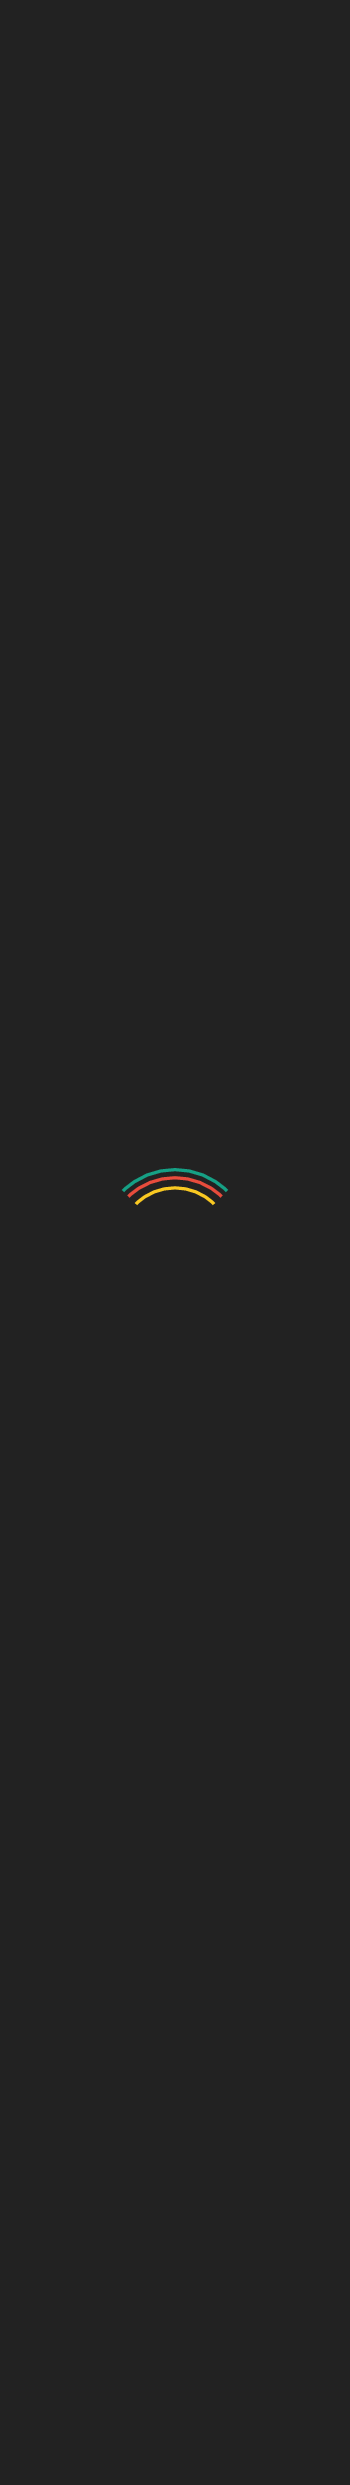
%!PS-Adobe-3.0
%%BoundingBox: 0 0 350 2485
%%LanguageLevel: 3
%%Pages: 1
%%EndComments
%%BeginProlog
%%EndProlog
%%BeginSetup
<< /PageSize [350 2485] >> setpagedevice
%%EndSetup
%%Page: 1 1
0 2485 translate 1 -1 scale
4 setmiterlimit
0.133 setgray
0 0 350 2485 rectfill
0.086 0.627 0.522 setrgbcolor
3 setlinewidth
newpath 123 1191 moveto 151.5 1162.5 198.5 1162.5 227 1191 curveto stroke
0.906 0.298 0.235 setrgbcolor
newpath 128.5 1196.5 moveto 154 1171.5 196 1171.5 221.5 1196.5 curveto stroke
0.976 0.788 0.133 setrgbcolor
newpath 136 1204 moveto 157 1182.5 193 1182.5 214 1204 curveto stroke
showpage
%%EOF
